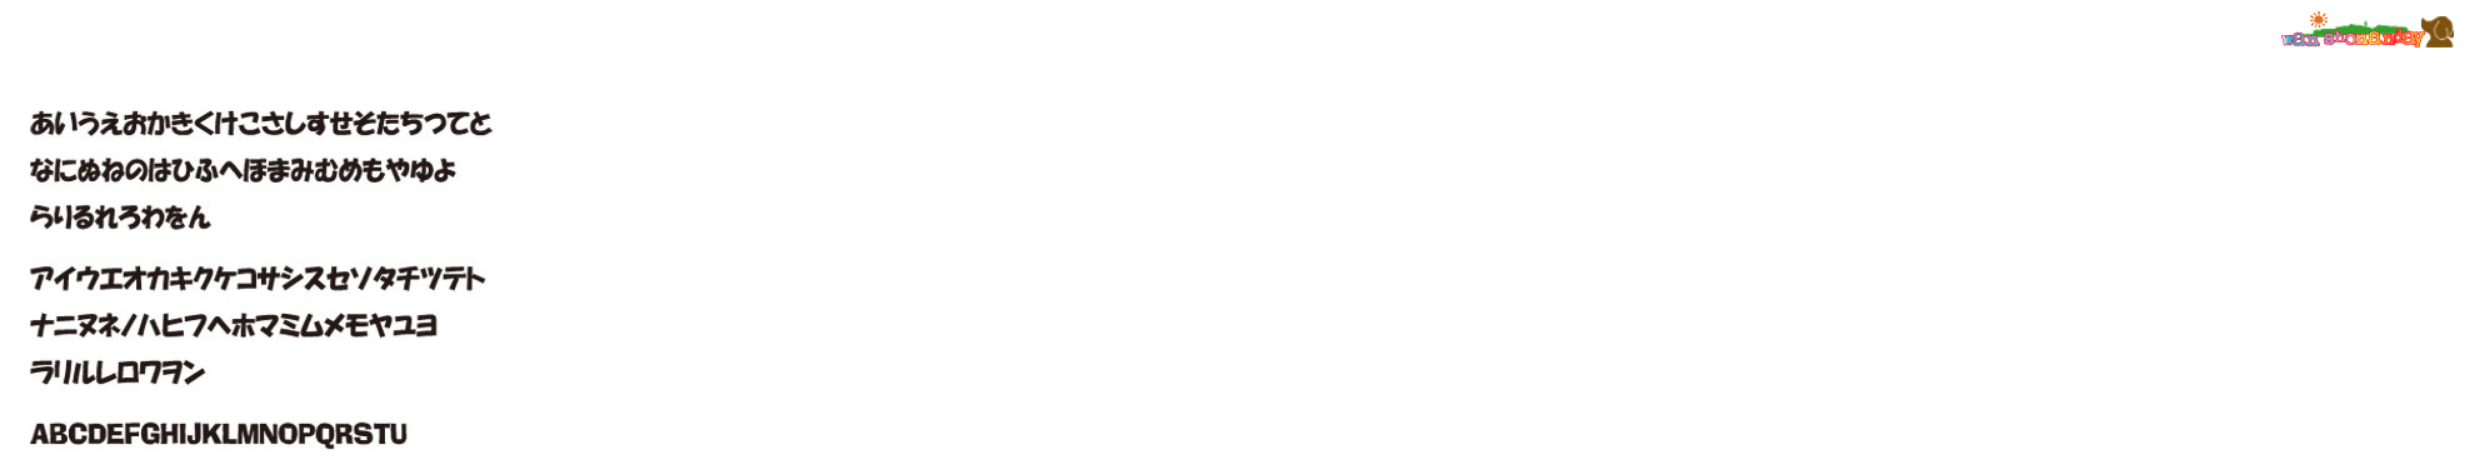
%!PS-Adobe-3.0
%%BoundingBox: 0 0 2465 468
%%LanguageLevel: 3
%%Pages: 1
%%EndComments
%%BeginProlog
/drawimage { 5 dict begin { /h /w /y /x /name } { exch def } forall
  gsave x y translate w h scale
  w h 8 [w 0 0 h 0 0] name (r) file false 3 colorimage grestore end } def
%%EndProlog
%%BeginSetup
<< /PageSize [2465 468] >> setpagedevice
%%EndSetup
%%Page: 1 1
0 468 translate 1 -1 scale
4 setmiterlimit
1 setgray
0 0 2465 468 rectfill
(images/1.raw) 2281 11 173 37 drawimage
(images/2.raw) 29 110 466 341 drawimage
showpage
%%EOF
